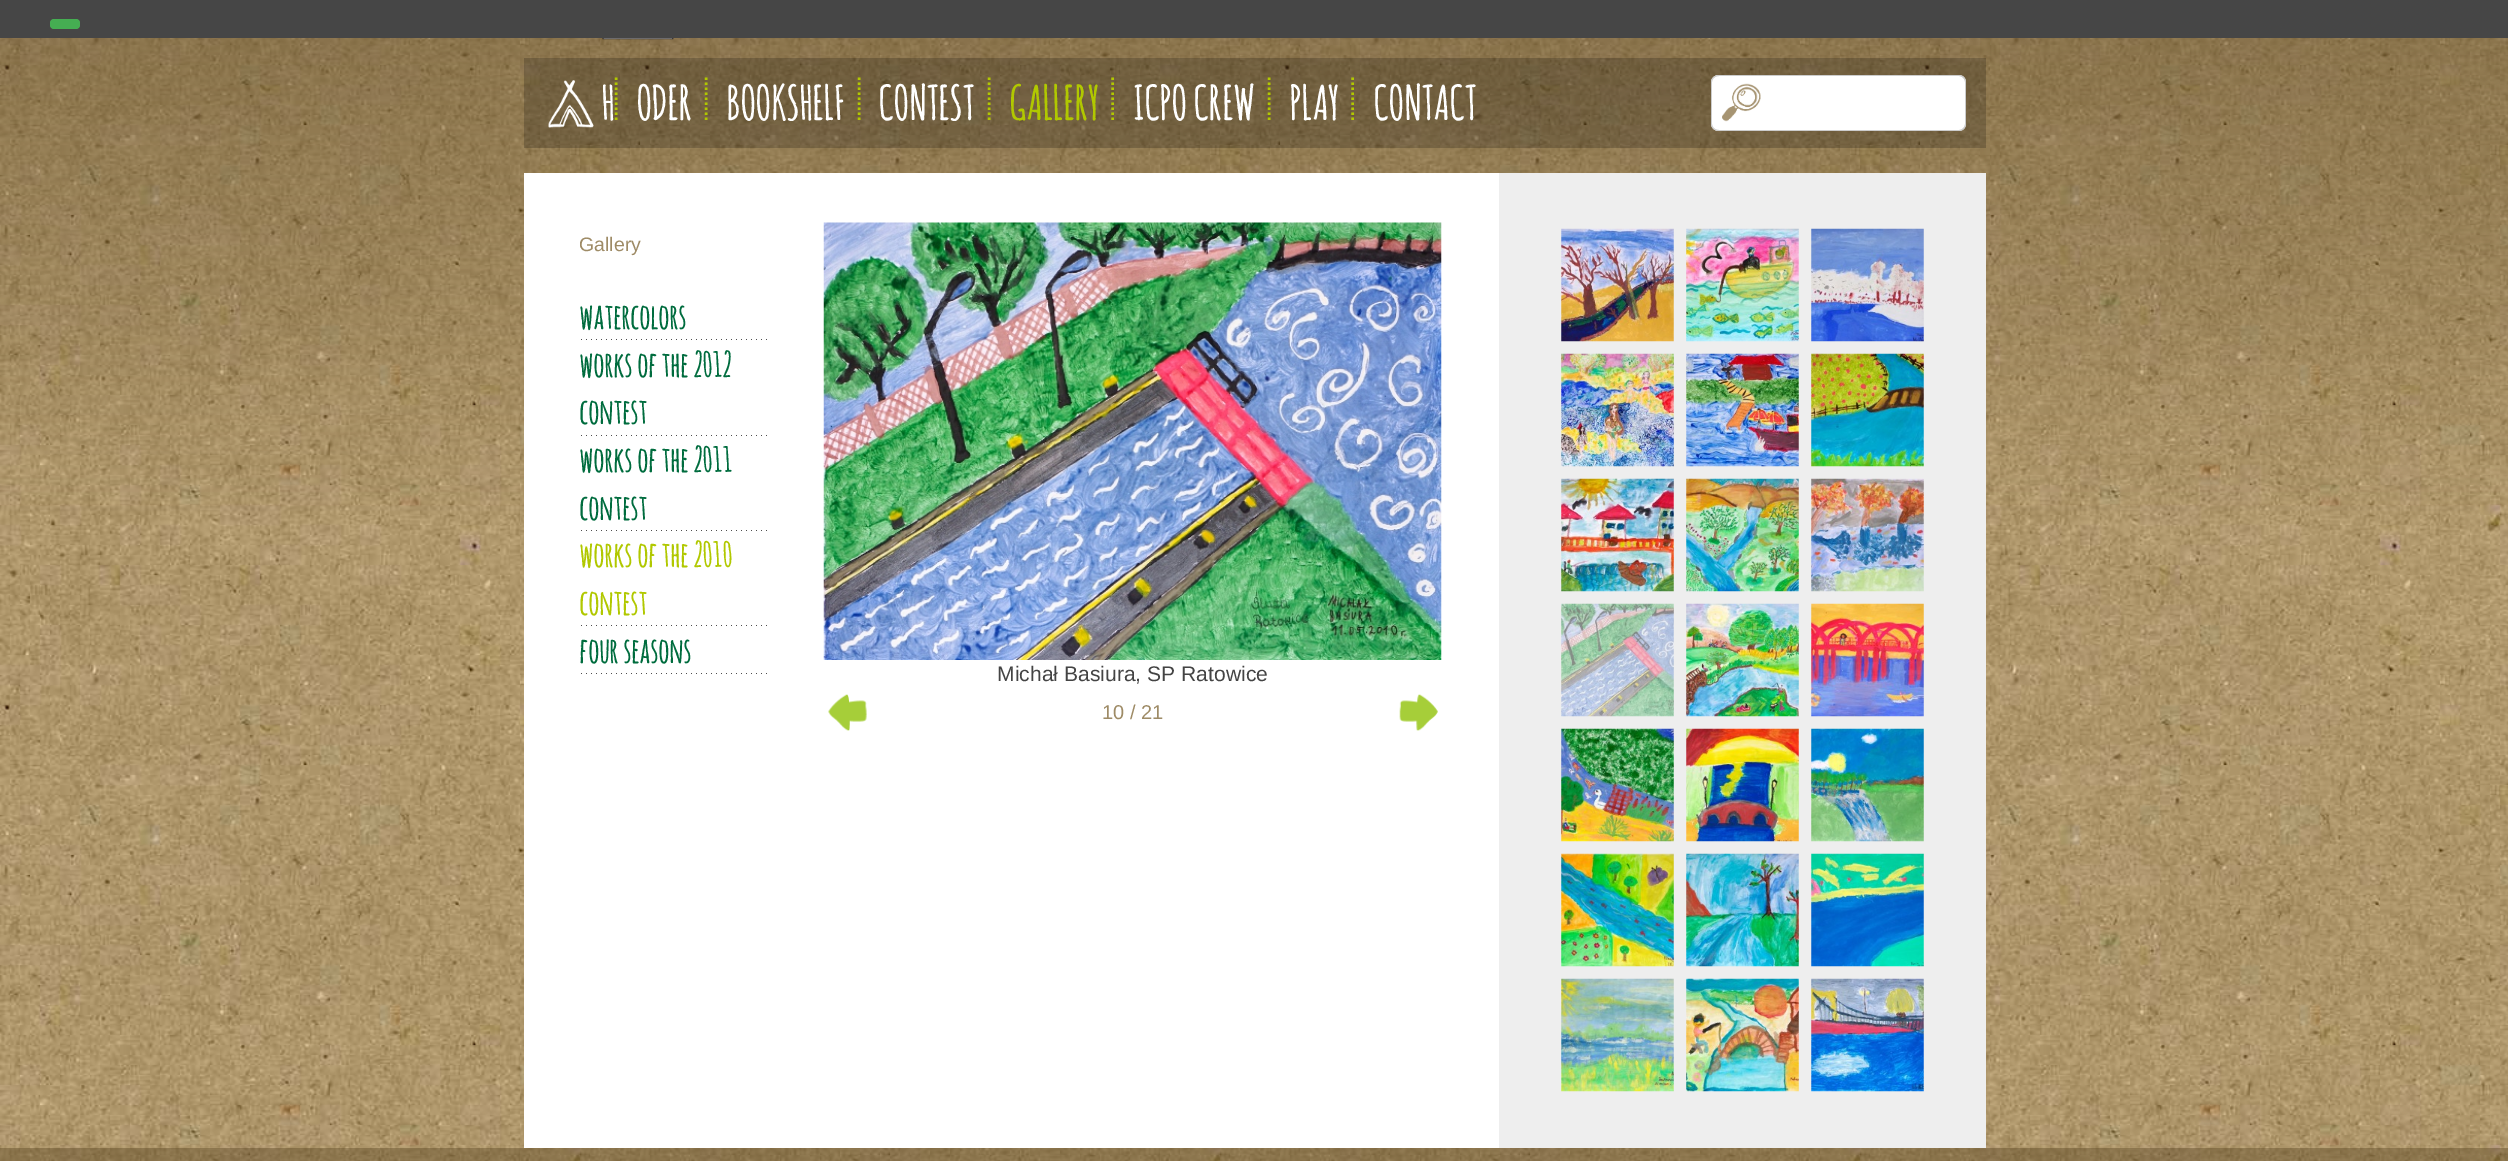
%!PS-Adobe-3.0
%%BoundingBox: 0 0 2508 1161
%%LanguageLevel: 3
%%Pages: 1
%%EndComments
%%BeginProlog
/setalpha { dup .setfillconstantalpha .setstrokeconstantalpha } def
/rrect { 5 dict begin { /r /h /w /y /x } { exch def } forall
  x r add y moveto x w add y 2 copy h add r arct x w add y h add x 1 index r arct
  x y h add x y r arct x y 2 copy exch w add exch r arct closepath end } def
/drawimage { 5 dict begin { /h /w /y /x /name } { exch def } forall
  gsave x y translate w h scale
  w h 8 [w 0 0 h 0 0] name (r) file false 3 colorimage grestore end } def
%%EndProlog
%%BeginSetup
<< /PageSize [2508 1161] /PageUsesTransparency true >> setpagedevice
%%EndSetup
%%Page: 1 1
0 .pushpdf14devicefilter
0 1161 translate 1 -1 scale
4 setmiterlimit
1 setgray
0 0 2508 1161 rectfill
(images/1.raw) 0 38 2508 1123 drawimage
0.275 setgray
0 0 2508 38 rectfill
0.271 0.682 0.322 setrgbcolor
50 19 30 10 4 rrect fill
(images/2.raw) 602 38 72 2 drawimage
0.2 setalpha
0 setgray
524 58 1462 90 rectfill
1 setalpha
(images/3.raw) 548 80 46 48 drawimage
0.694 0.784 0 setrgbcolor
2.5 setlinewidth
[2.5 2.5] 0 setdash
newpath 616 77.5 moveto 616 122.5 lineto stroke
newpath 706 77.5 moveto 706 122.5 lineto stroke
newpath 859 77.5 moveto 859 122.5 lineto stroke
newpath 989 77.5 moveto 989 122.5 lineto stroke
newpath 1112.5 77.5 moveto 1112.5 122.5 lineto stroke
newpath 1269 77.5 moveto 1269 122.5 lineto stroke
newpath 1352.5 77.5 moveto 1352.5 122.5 lineto stroke
1 setgray
newpath 1719 75 moveto 1769 75 lineto 1769 131 lineto 1719 131 lineto 1714.5 131 1711 127.5 1711 123 curveto 1711 83 lineto 1711 78.5 1714.5 75 1719 75 curveto closepath fill
0.8 setgray
newpath 1719 75 moveto 1769 75 lineto 1769 131 lineto 1719 131 lineto 1715 131 1711 128 1711 124 curveto 1711 82 lineto 1711 78 1715 75 1719 75 curveto closepath 1719 76 moveto 1769 76 lineto 1769 130 lineto 1719 130 lineto 1715 130 1712 127 1712 124 curveto 1712 82 lineto 1712 79 1715 76 1719 76 curveto closepath eofill
(images/4.raw) 1722 83 39 39 drawimage
1 setgray
newpath 1769 75 moveto 1958 75 lineto 1962.5 75 1966 78.5 1966 83 curveto 1966 123 lineto 1966 127.5 1962.5 131 1958 131 curveto 1769 131 lineto closepath fill
0.8 setgray
newpath 1769 75 moveto 1959 75 lineto 1963 75 1966 78 1966 82 curveto 1966 124 lineto 1966 128 1963 131 1959 131 curveto 1769 131 lineto closepath 1769 76 moveto 1959 76 lineto 1962 76 1965 79 1965 82 curveto 1965 124 lineto 1965 127 1962 130 1959 130 curveto 1769 130 lineto closepath eofill
1 setgray
524 173 975 975 rectfill
(images/5.raw) 581 339 186 1 drawimage
(images/5.raw) 581 435 186 1 drawimage
(images/5.raw) 581 530 186 1 drawimage
(images/5.raw) 581 625 186 1 drawimage
(images/5.raw) 581 673 186 1 drawimage
0.933 setgray
1499 173 487 975 rectfill
(images/6.raw) 1561 228 113 114 drawimage
(images/7.raw) 1686 228 113 114 drawimage
(images/8.raw) 1811 228 113 114 drawimage
(images/9.raw) 1561 353 113 114 drawimage
(images/10.raw) 1686 353 113 114 drawimage
(images/11.raw) 1811 353 113 114 drawimage
(images/12.raw) 1561 478 113 114 drawimage
(images/13.raw) 1686 478 113 114 drawimage
(images/14.raw) 1811 478 113 114 drawimage
(images/15.raw) 1561 603 113 114 drawimage
(images/16.raw) 1686 603 113 114 drawimage
(images/17.raw) 1811 603 113 114 drawimage
(images/18.raw) 1561 728 113 114 drawimage
(images/19.raw) 1686 728 113 114 drawimage
(images/20.raw) 1811 728 113 114 drawimage
(images/21.raw) 1561 853 113 114 drawimage
(images/22.raw) 1686 853 113 114 drawimage
(images/23.raw) 1811 853 113 114 drawimage
(images/24.raw) 1561 978 113 114 drawimage
(images/25.raw) 1686 978 113 114 drawimage
(images/26.raw) 1811 978 113 114 drawimage
(images/27.raw) 823 222 619 438 drawimage
(images/28.raw) 828 694 39 37 drawimage
(images/29.raw) 1399 694 39 37 drawimage
0.4 setalpha
0.333 0.255 0.118 setrgbcolor
0 1148 2508 13 rectfill
/AmaticSC-Bold [45.5 0 0 -45.5 0 0] selectfont
1 setalpha
1 setgray
601 120 moveto (H) show
636 120 moveto (ODER) show
726 120 moveto (BOOKSHELF) show
878 120 moveto (CONTEST) show
0.694 0.784 0 setrgbcolor
1009 120 moveto (GALLERY) show
1 setgray
1133 120 moveto (ICPO CREW) show
1289 120 moveto (PLAY) show
1373 120 moveto (CONTACT) show
/LiberationSans-Regular [19.5 0 0 -19.5 0 0] selectfont
0.62 0.545 0.4 setrgbcolor
579 251 moveto (Gallery) show
/AmaticSC-Bold [33.5 0 0 -33.5 0 0] selectfont
0 0.424 0.243 setrgbcolor
579 329 moveto (watercolors) show
579 377 moveto (works of the 2012) show
579 424 moveto (contest) show
579 472 moveto (works of the 2011) show
579 520 moveto (contest) show
0.694 0.784 0 setrgbcolor
579 567 moveto (works of the 2010) show
579 615 moveto (contest) show
0 0.424 0.243 setrgbcolor
579 663 moveto (four seasons) show
/LiberationSans-Regular [21.1 0 0 -21.1 0 0] selectfont
0.267 setgray
997 681 moveto (Michał Basiura, SP Ratowice) show
/LiberationSans-Regular [20 0 0 -20 0 0] selectfont
0.62 0.545 0.4 setrgbcolor
1102 719 moveto (10 / 21) show
.poppdf14devicefilter showpage
%%EOF
